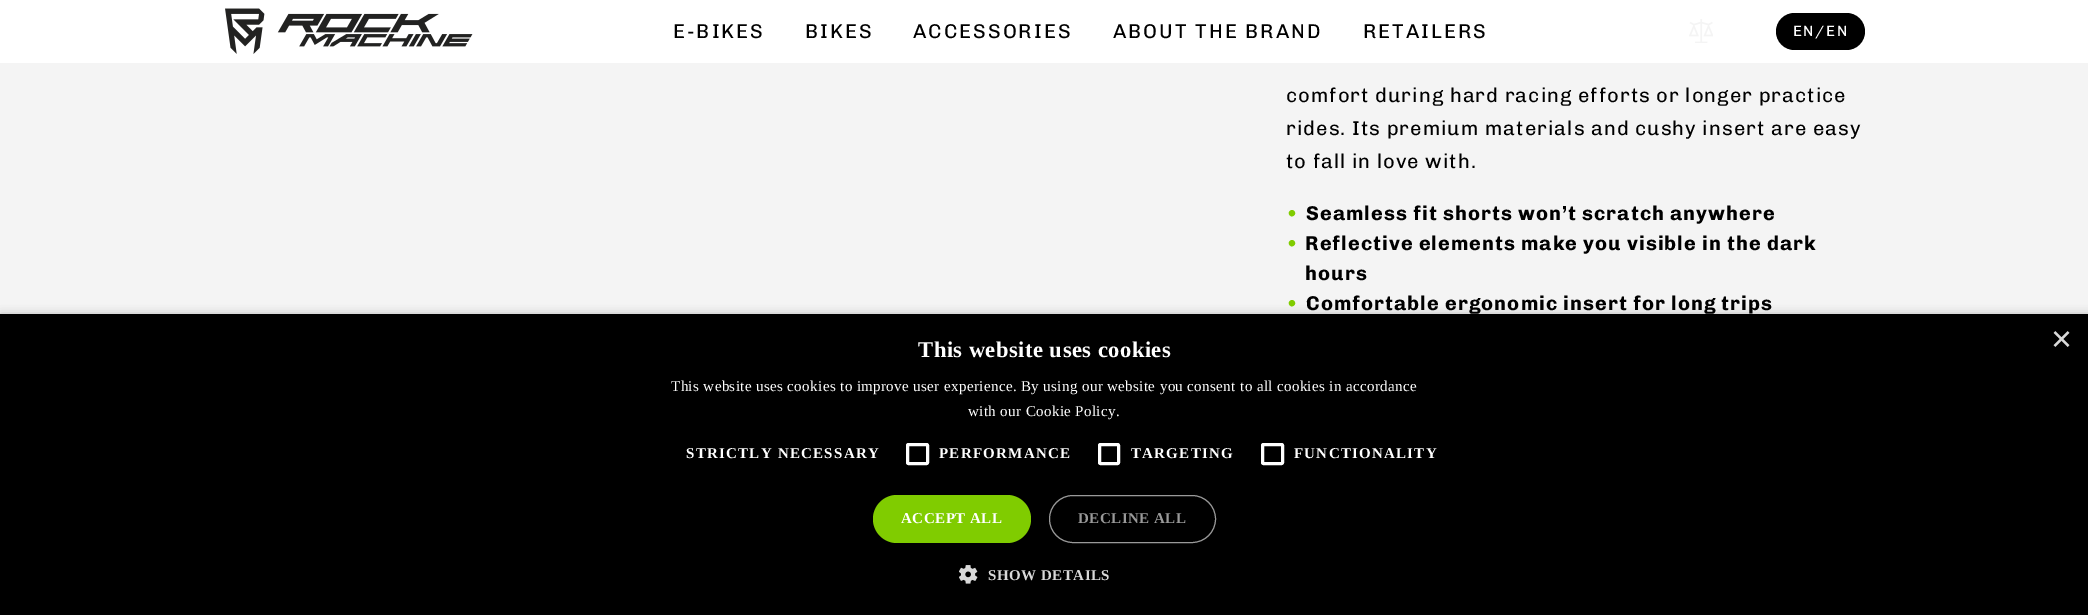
%!PS-Adobe-3.0
%%BoundingBox: 0 0 2088 615
%%LanguageLevel: 3
%%Pages: 1
%%EndComments
%%BeginProlog
/setalpha { dup .setfillconstantalpha .setstrokeconstantalpha } def
/rrect { 5 dict begin { /r /h /w /y /x } { exch def } forall
  x r add y moveto x w add y 2 copy h add r arct x w add y h add x 1 index r arct
  x y h add x y r arct x y 2 copy exch w add exch r arct closepath end } def
/softshadow { 12 dict begin { /a /b /q /h /w /y /x } { exch def } forall gsave /was 0 def
  9 -2 -9 { dup b mul 4 div /e exch def 1 sub .425 mul 2.718 exch exp 1 add a .99 .min exch div /now exch def
    1 1 now sub 1 was sub div sub setalpha /was now def
    w h .min e 2 mul add 0 gt { x e sub y e sub w e 2 mul add h e 2 mul add
      q e add b .6 mul add w h .min 2 div e add .min 0 .max rrect fill } if } for grestore end } def
/drawimage { 5 dict begin { /h /w /y /x /name } { exch def } forall
  gsave x y translate w h scale
  w h 8 [w 0 0 h 0 0] name (r) file false 3 colorimage grestore end } def
%%EndProlog
%%BeginSetup
<< /PageSize [2088 615] /PageUsesTransparency true >> setpagedevice
%%EndSetup
%%Page: 1 1
0 .pushpdf14devicefilter
0 615 translate 1 -1 scale
4 setmiterlimit
0.957 setgray
0 0 2088 615 rectfill
1 setgray
0 0 2088 63 rectfill
(images/1.raw) 225 8 248 46 drawimage
(images/2.raw) 1689 19 24 24 drawimage
0 setgray
1776 13 89 37 18.5 rrect fill
1 316 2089 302 0 5 0.35 softshadow
0 314 2088 301 rectfill
1 setgray
3 setlinewidth
907.5 444.5 20 19 1 rrect stroke
1099.5 444.5 19 19 1 rrect stroke
1262.5 444.5 20 19 1 rrect stroke
0.502 0.8 0 setrgbcolor
873 495 158 48 24 rrect fill
0.6 setgray
1 setlinewidth
1049.5 495.5 166 47 23.5 rrect stroke
(images/3.raw) 959 565 19 19 drawimage
/Chivo-Regular [20 0 0 -20 0 0] selectfont
0 setgray
673 38 moveto 2 0 (E-BIKES) ashow
805 38 moveto 2 0 (BIKES) ashow
913 38 moveto 2 0 (ACCESSORIES) ashow
1113 38 moveto 2 0 (ABOUT THE BRAND) ashow
1363 38 moveto 2 0 (RETAILERS) ashow
/Chivo-Regular [15 0 0 -15 0 0] selectfont
1 setgray
1793 36 moveto 1.5 0 (EN/EN) ashow
/Chivo-Regular [20 0 0 -20 0 0] selectfont
0 setgray
1286 102 moveto 1 0 (comfort during hard racing efforts or longer practice) ashow
1286 135 moveto 1 0 (rides. Its premium materials and cushy insert are easy) ashow
1286 168 moveto 1 0 (to fall in love with.) ashow
/Chivo-Bold [20 0 0 -20 0 0] selectfont
0.502 0.8 0 setrgbcolor
1286 220 moveto 1 0 (•) ashow
0 setgray
1306 220 moveto 1 0 (Seamless fit shorts won’t scratch anywhere) ashow
0.502 0.8 0 setrgbcolor
1286 250 moveto 1 0 (•) ashow
0 setgray
1305 250 moveto 1 0 (Reflective elements make you visible in the dark) ashow
1305 280 moveto 1 0 (hours) ashow
0.502 0.8 0 setrgbcolor
1286 310 moveto 1 0 (•) ashow
0 setgray
1306 310 moveto 1 0 (Comfortable ergonomic insert for long trips) ashow
/LiberationSans-Regular [36 0 0 -36 0 0] selectfont
0.851 setgray
2051 351 moveto (×) show
/LiberationSerif-Bold [22.5 0 0 -22.5 0 0] selectfont
1 setgray
918 357 moveto 0.5 0 (This website uses cookies) ashow
/LiberationSerif-Regular [15 0 0 -15 0 0] selectfont
671 391 moveto 0.38 0 (This website uses cookies to improve user experience. By using our website you consent to all cookies in accordance) ashow
968 416 moveto 0.38 0 (with our Cookie Policy.) ashow
/LiberationSerif-Bold [15 0 0 -15 0 0] selectfont
686 458 moveto 1.25 0 (STRICTLY NECESSARY) ashow
939 458 moveto 1.25 0 (PERFORMANCE) ashow
1131 458 moveto 1.25 0 (TARGETING) ashow
1294 458 moveto 1.25 0 (FUNCTIONALITY) ashow
901 523 moveto 0.5 0 (ACCEPT ALL) ashow
0.6 setgray
1078 523 moveto 0.5 0 (DECLINE ALL) ashow
0.851 setgray
988 580 moveto 0.5 0 (SHOW DETAILS) ashow
.poppdf14devicefilter showpage
%%EOF
